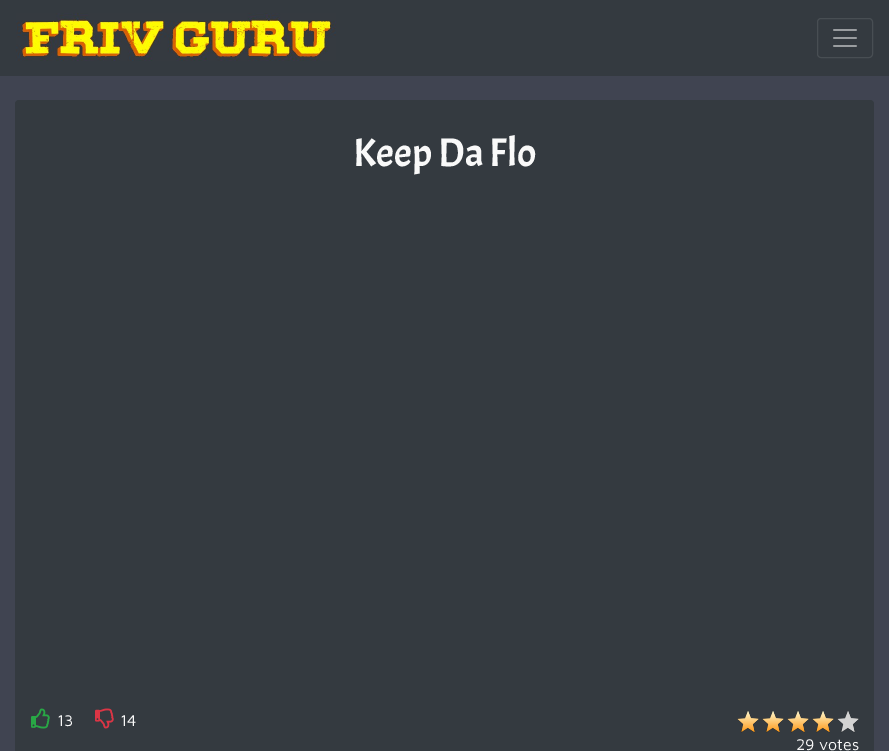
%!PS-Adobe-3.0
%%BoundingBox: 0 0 889 751
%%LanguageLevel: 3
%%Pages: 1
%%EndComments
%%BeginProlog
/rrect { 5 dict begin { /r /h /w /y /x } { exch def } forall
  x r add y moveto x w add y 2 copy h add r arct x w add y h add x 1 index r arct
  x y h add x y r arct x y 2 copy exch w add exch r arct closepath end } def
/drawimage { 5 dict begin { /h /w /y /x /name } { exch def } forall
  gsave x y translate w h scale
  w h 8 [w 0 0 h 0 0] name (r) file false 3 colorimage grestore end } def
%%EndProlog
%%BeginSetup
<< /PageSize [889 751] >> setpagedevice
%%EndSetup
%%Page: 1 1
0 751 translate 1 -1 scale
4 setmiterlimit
0.251 0.267 0.318 setrgbcolor
0 0 889 751 rectfill
0.204 0.227 0.251 setrgbcolor
0 0 889 76 rectfill
(images/1.raw) 16 13 320 48 drawimage
0.282 0.306 0.325 setrgbcolor
817.5 18.5 55 39 3.5 rrect stroke
(images/2.raw) 833 29 24 18 drawimage
0.204 0.227 0.251 setrgbcolor
15 100 859 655 4 rrect fill
(images/3.raw) 31 708 19 21 drawimage
(images/4.raw) 95 708 19 21 drawimage
(images/5.raw) 737 711 22 22 drawimage
(images/5.raw) 762 711 22 22 drawimage
(images/5.raw) 787 711 22 22 drawimage
(images/5.raw) 812 711 22 22 drawimage
(images/6.raw) 837 711 22 22 drawimage
/Acme-Regular [40 0 0 -40 0 0] selectfont
0.976 setgray
353 166 moveto (Keep Da Flo) show
/MavenPro-Regular [16 0 0 -16 0 0] selectfont
57 726 moveto (13) show
120 726 moveto (14) show
796 750 moveto (29 votes) show
showpage
%%EOF
